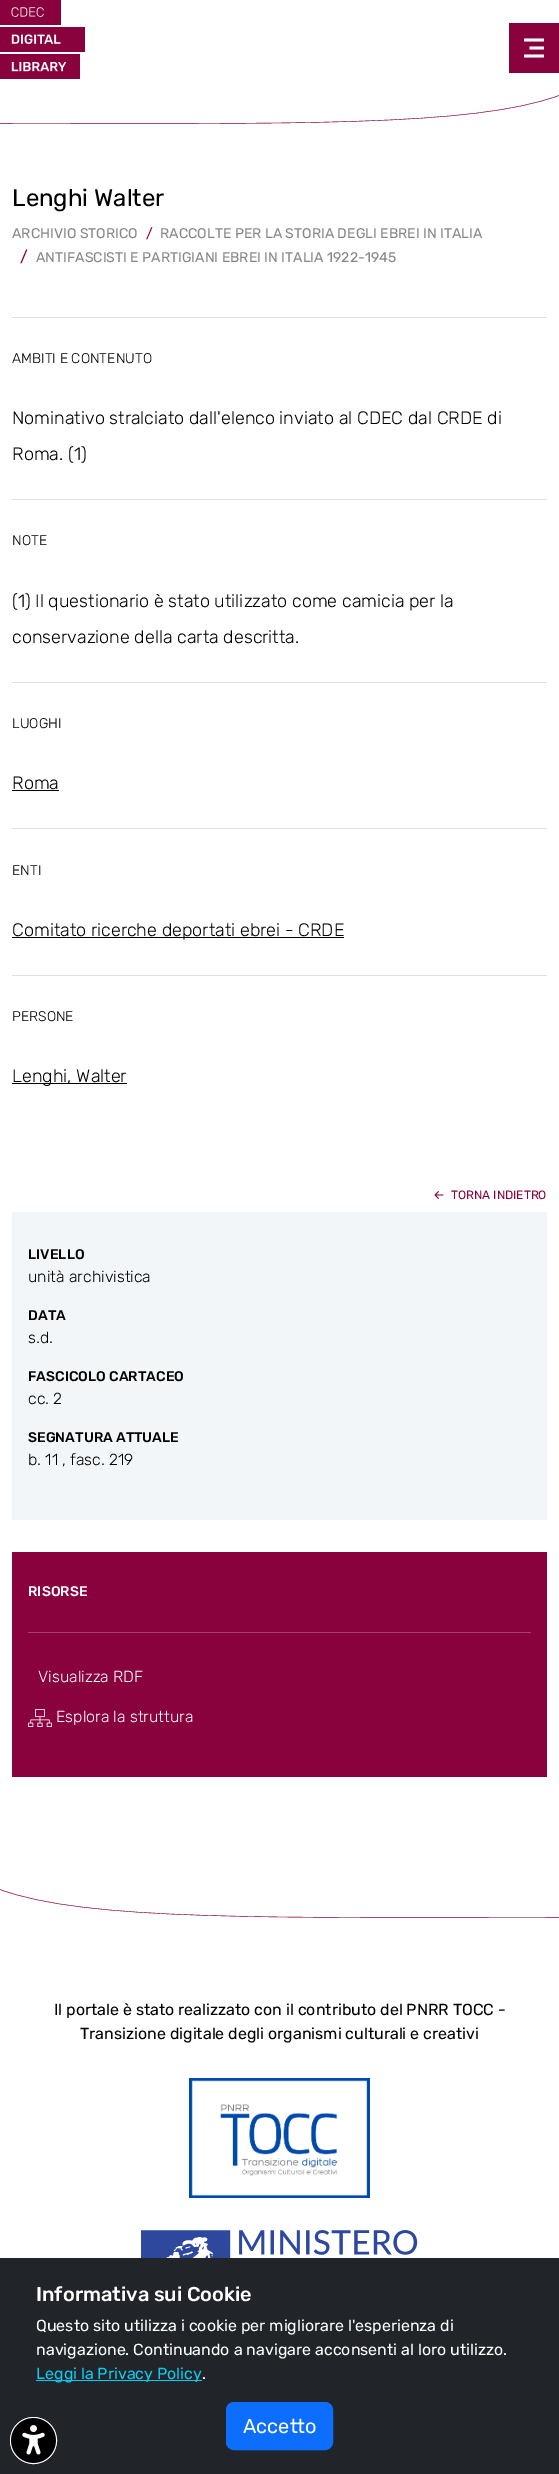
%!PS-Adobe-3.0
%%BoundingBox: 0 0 559 2474
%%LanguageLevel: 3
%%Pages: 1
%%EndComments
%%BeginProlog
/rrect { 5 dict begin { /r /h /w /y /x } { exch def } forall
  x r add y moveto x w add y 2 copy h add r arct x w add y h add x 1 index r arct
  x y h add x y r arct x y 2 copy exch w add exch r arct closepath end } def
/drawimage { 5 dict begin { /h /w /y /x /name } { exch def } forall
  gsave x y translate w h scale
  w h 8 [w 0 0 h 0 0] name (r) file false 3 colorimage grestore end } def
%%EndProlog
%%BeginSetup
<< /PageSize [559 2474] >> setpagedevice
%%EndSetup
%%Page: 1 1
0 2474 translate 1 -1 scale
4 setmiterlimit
1 setgray
0 0 559 2474 rectfill
(images/1.raw) 0 0 85 79 drawimage
0.537 0.008 0.243 setrgbcolor
509 23 50 50 rectfill
1 setgray
newpath 544 41.5 moveto 524 41.5 lineto 524 38.5 lineto 544 38.5 lineto closepath 544 54.5 moveto 524 54.5 lineto 524 57.5 lineto 544 57.5 lineto closepath 544 46.5 moveto 529.5 46.5 lineto 529.5 49.5 lineto 544 49.5 lineto closepath fill
0.537 0.008 0.243 setrgbcolor
0.4 setlinewidth
newpath 559 95.5 moveto 473 127 290.5 123.5 0 123.5 curveto stroke
0.871 0.886 0.902 setrgbcolor
12 317 535 1 rectfill
12 499 535 1 rectfill
12 682 535 1 rectfill
0 setgray
12 790 47 1 rectfill
0.871 0.886 0.902 setrgbcolor
12 828 535 1 rectfill
0 setgray
12 937 332 1 rectfill
0.871 0.886 0.902 setrgbcolor
12 975 535 1 rectfill
0 setgray
12 1083 115 1 rectfill
(images/2.raw) 434 1191 10 8 drawimage
0.953 0.965 0.973 setrgbcolor
12 1212 535 308 rectfill
0.537 0.008 0.243 setrgbcolor
12 1552 535 225 rectfill
0.655 0.255 0.431 setrgbcolor
28 1632 503 1 rectfill
(images/3.raw) 28 1709 24 18 drawimage
0.537 0.008 0.243 setrgbcolor
newpath 0 1889.5 moveto 85.5 1921 268.5 1917.5 559 1917.5 curveto stroke
(images/4.raw) 189 2078 181 120 drawimage
(images/5.raw) 141 2230 277 28 drawimage
0.129 0.145 0.161 setrgbcolor
0 2258 559 216 rectfill
0.051 0.792 0.941 setrgbcolor
36 2380 166 1 rectfill
0.051 0.431 0.992 setrgbcolor
226.5 2402.5 106 47 7.5 rrect gsave fill grestore
1 setlinewidth
stroke
1 setgray
newpath 33.5 2440.5 23 0 360 arc closepath gsave fill grestore
stroke
(images/6.raw) 11 2418 45 45 drawimage
/Rubik-Regular [24 0 0 -24 0 0] selectfont
0 setgray
12 206 moveto (Lenghi Walter) show
/Rubik-Regular [14 0 0 -14 0 0] selectfont
0.522 setgray
12 238 moveto (ARCHIVIO STORICO) show
0.537 0.008 0.243 setrgbcolor
146 238 moveto (/) show
0.522 setgray
160 238 moveto (RACCOLTE PER LA STORIA DEGLI EBREI IN ITALIA) show
/Rubik-Regular [16 0 0 -16 0 0] selectfont
0.537 0.008 0.243 setrgbcolor
20 262 moveto (/) show
/Rubik-Regular [14 0 0 -14 0 0] selectfont
0.522 setgray
36 262 moveto (ANTIFASCISTI E PARTIGIANI EBREI IN ITALIA 1922-1945) show
/Rubik-Light [14 0 0 -14 0 0] selectfont
0 setgray
12 363 moveto (AMBITI E CONTENUTO) show
/Rubik-Light [18 0 0 -18 0 0] selectfont
12 424 moveto (Nominativo stralciato dall'elenco inviato al CDEC dal CRDE di) show
12 460 moveto (Roma. \(1\)) show
/Rubik-Light [14 0 0 -14 0 0] selectfont
12 545 moveto (NOTE) show
/Rubik-Light [18 0 0 -18 0 0] selectfont
12 607 moveto (\(1\) Il questionario è stato utilizzato come camicia per la) show
12 643 moveto (conservazione della carta descritta.) show
/Rubik-Light [14 0 0 -14 0 0] selectfont
12 728 moveto (LUOGHI) show
/Rubik-Light [18 0 0 -18 0 0] selectfont
12 789 moveto (Roma) show
/Rubik-Light [14 0 0 -14 0 0] selectfont
12 875 moveto (ENTI) show
/Rubik-Light [18 0 0 -18 0 0] selectfont
12 936 moveto (Comitato ricerche deportati ebrei - CRDE) show
/Rubik-Light [14 0 0 -14 0 0] selectfont
12 1021 moveto (PERSONE) show
/Rubik-Light [18 0 0 -18 0 0] selectfont
12 1082 moveto (Lenghi, Walter) show
/Rubik-Regular [12 0 0 -12 0 0] selectfont
0.537 0.008 0.243 setrgbcolor
451 1199 moveto (TORNA INDIETRO) show
/Rubik-Medium [14 0 0 -14 0 0] selectfont
0 setgray
28 1259 moveto (LIVELLO) show
/Rubik-Light [16 0 0 -16 0 0] selectfont
28 1282 moveto (unità archivistica) show
/Rubik-Medium [14 0 0 -14 0 0] selectfont
28 1320 moveto (DATA) show
/Rubik-Light [16 0 0 -16 0 0] selectfont
28 1343 moveto (s.d.) show
/Rubik-Medium [14 0 0 -14 0 0] selectfont
28 1381 moveto (FASCICOLO CARTACEO) show
/Rubik-Light [16 0 0 -16 0 0] selectfont
28 1404 moveto (cc. 2) show
/Rubik-Medium [14 0 0 -14 0 0] selectfont
28 1442 moveto (SEGNATURA ATTUALE) show
/Rubik-Light [16 0 0 -16 0 0] selectfont
28 1465 moveto (b. 11 , fasc. 219) show
/Rubik-Medium [14 0 0 -14 0 0] selectfont
1 setgray
28 1596 moveto (RISORSE) show
/Rubik-Light [16 0 0 -16 0 0] selectfont
38 1682 moveto (Visualizza RDF) show
56 1722 moveto (Esplora la struttura) show
/Rubik-Regular [16 0 0 -16 0 0] selectfont
0 setgray
54 2015 moveto (Il portale è stato realizzato con il contributo del PNRR TOCC -) show
80 2039 moveto (Transizione digitale degli organismi culturali e creativi) show
/Rubik-Medium [20 0 0 -20 0 0] selectfont
1 setgray
36 2301 moveto (Informativa sui Cookie) show
/Rubik-Regular [16 0 0 -16 0 0] selectfont
36 2331 moveto (Questo sito utilizza i cookie per migliorare l'esperienza di) show
36 2355 moveto (navigazione. Continuando a navigare acconsenti al loro utilizzo.) show
0.051 0.792 0.941 setrgbcolor
36 2379 moveto (Leggi la Privacy Policy) show
1 setgray
202 2379 moveto (.) show
/Rubik-Regular [20 0 0 -20 0 0] selectfont
243 2433 moveto (Accetto) show
showpage
%%EOF
